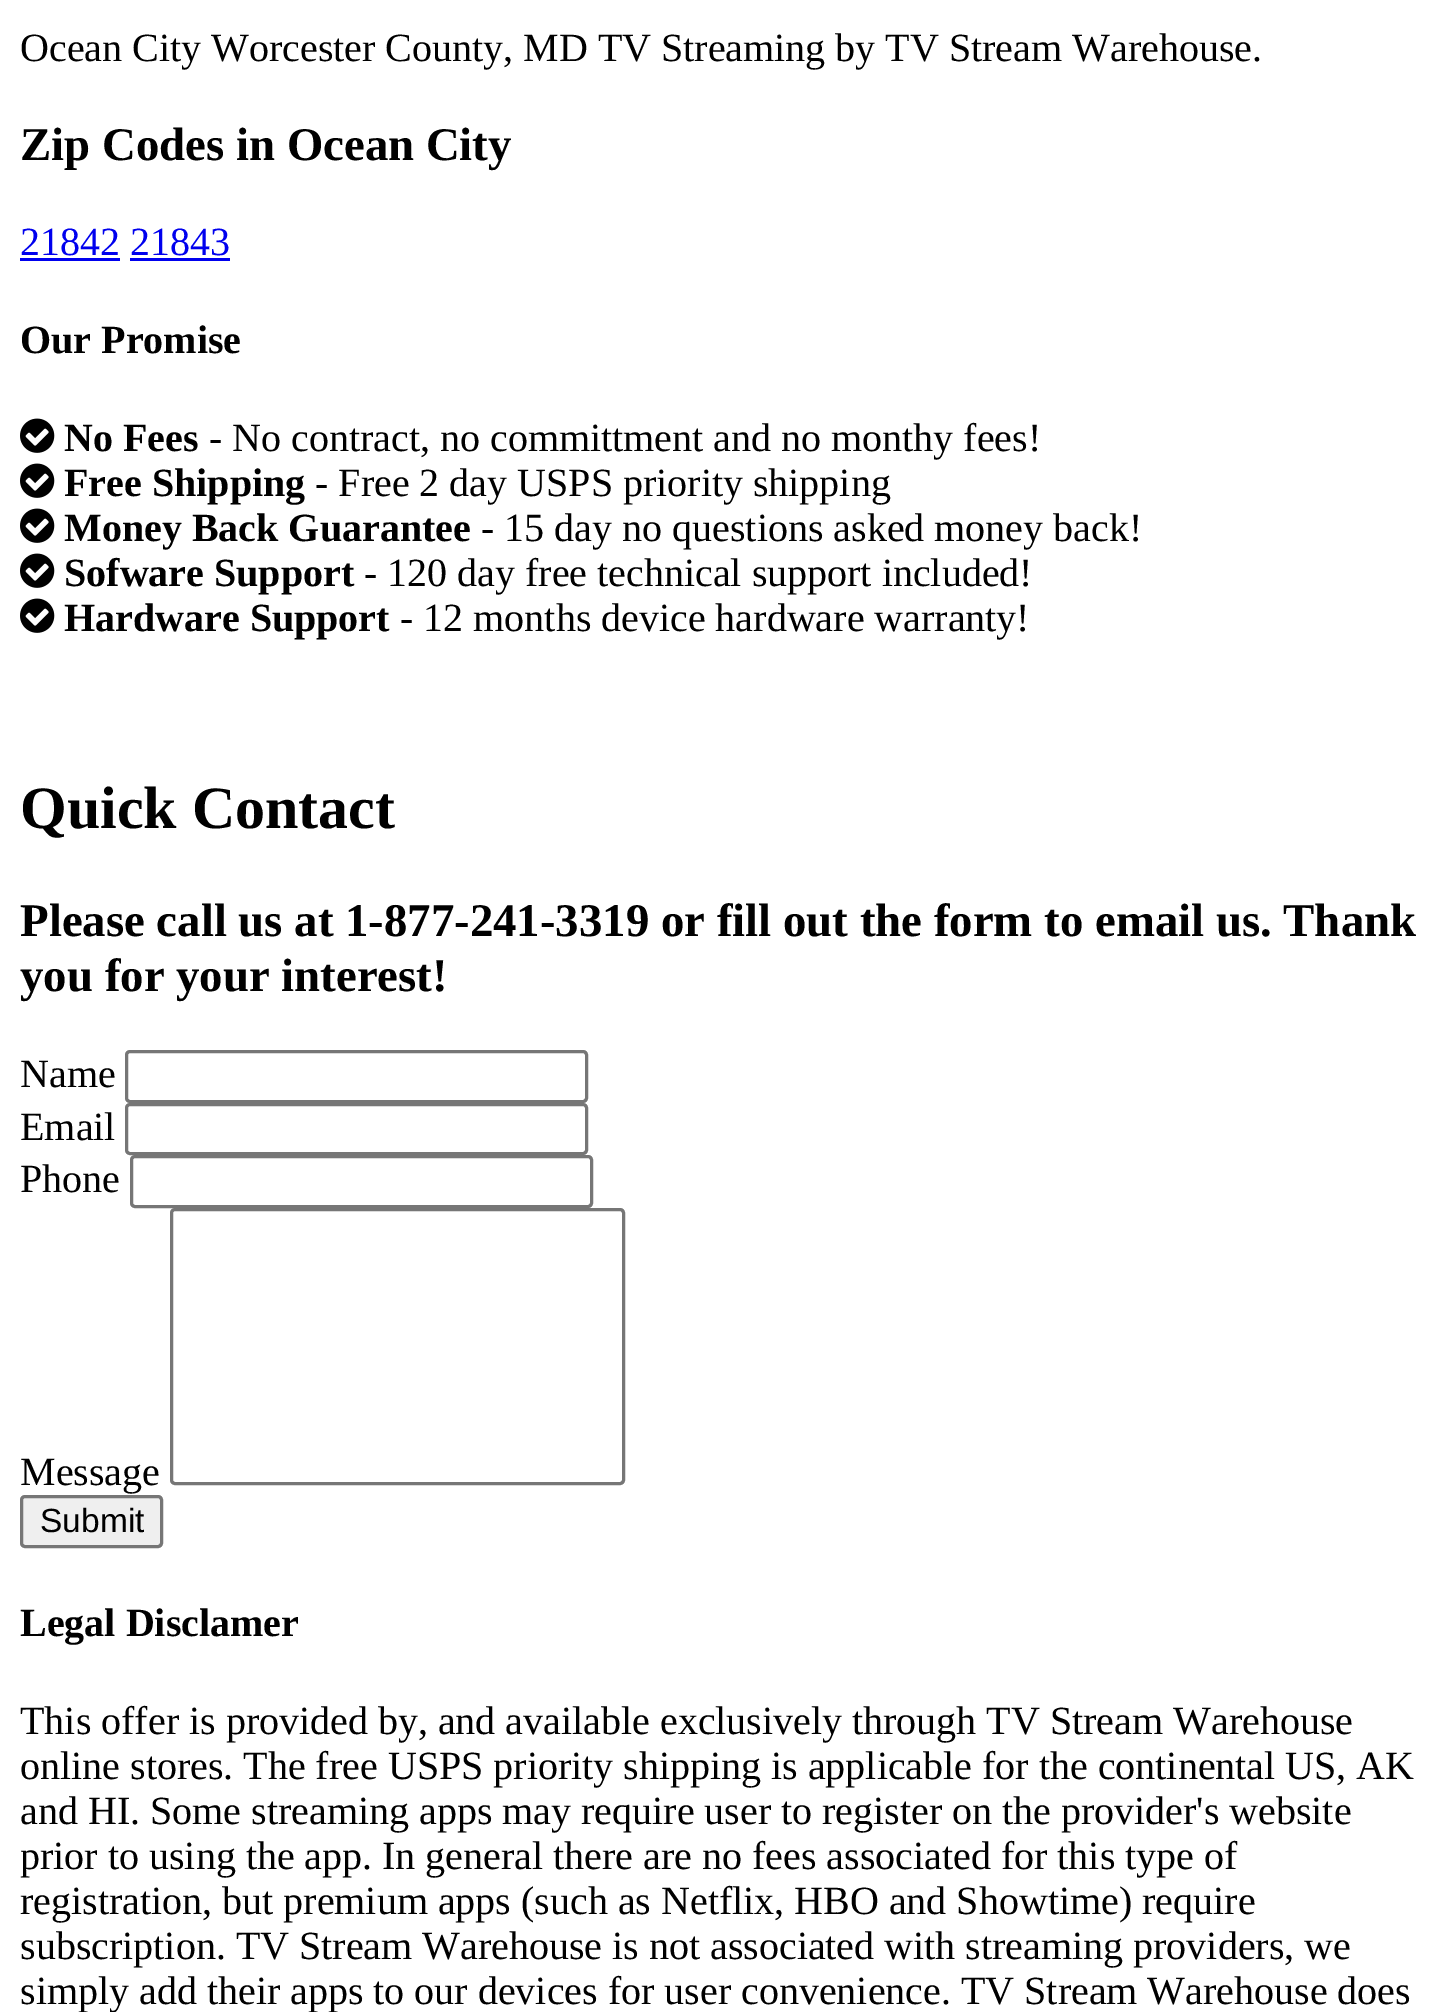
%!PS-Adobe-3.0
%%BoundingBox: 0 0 1456 2012
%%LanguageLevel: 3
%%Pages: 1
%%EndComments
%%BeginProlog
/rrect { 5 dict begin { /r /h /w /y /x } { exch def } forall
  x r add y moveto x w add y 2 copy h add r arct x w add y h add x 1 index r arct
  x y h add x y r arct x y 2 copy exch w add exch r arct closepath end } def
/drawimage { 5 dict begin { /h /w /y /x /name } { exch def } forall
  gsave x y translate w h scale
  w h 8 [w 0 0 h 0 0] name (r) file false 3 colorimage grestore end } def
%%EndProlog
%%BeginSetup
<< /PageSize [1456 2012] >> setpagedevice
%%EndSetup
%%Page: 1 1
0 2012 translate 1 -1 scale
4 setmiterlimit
1 setgray
0 0 1456 2012 rectfill
0 0 0.933 setrgbcolor
20 258 100 3 rectfill
130 258 100 3 rectfill
(images/1.raw) 20 418 35 35 drawimage
(images/1.raw) 20 463 35 35 drawimage
(images/1.raw) 20 508 35 35 drawimage
(images/1.raw) 20 553 35 35 drawimage
(images/1.raw) 20 598 35 35 drawimage
0.463 setgray
3 setlinewidth
126.5 1051.5 460 50 3.5 rrect stroke
126.5 1104.5 460 49 3.5 rrect stroke
131.5 1156.5 460 50 3.5 rrect stroke
171.5 1209.5 452 274 3.5 rrect stroke
0.937 setgray
21.5 1496.5 140 50 3.5 rrect gsave fill grestore
0.463 setgray
stroke
/LiberationSerif-Regular [40 0 0 -40 0 0] selectfont
0 setgray
20 61 moveto (Ocean City Worcester County, MD TV Streaming by TV Stream Warehouse.) show
/LiberationSerif-Bold [46.8 0 0 -46.8 0 0] selectfont
20 160 moveto (Zip Codes in Ocean City) show
/LiberationSerif-Regular [40 0 0 -40 0 0] selectfont
0 0 0.933 setrgbcolor
20 255 moveto (21842 21843) show
/LiberationSerif-Bold [40 0 0 -40 0 0] selectfont
0 setgray
20 353 moveto (Our Promise) show
64 451 moveto (No Fees) show
/LiberationSerif-Regular [40 0 0 -40 0 0] selectfont
209 451 moveto (- No contract, no committment and no monthy fees!) show
/LiberationSerif-Bold [40 0 0 -40 0 0] selectfont
64 496 moveto (Free Shipping) show
/LiberationSerif-Regular [40 0 0 -40 0 0] selectfont
315 496 moveto (- Free 2 day USPS priority shipping) show
/LiberationSerif-Bold [40 0 0 -40 0 0] selectfont
64 541 moveto (Money Back Guarantee) show
/LiberationSerif-Regular [40 0 0 -40 0 0] selectfont
481 541 moveto (- 15 day no questions asked money back!) show
/LiberationSerif-Bold [40 0 0 -40 0 0] selectfont
64 586 moveto (Sofware Support) show
/LiberationSerif-Regular [40 0 0 -40 0 0] selectfont
364 586 moveto (- 120 day free technical support included!) show
/LiberationSerif-Bold [40 0 0 -40 0 0] selectfont
64 631 moveto (Hardware Support) show
/LiberationSerif-Regular [40 0 0 -40 0 0] selectfont
400 631 moveto (- 12 months device hardware warranty!) show
/LiberationSerif-Bold [60 0 0 -60 0 0] selectfont
20 828 moveto (Quick Contact) show
/LiberationSerif-Bold [46.8 0 0 -46.8 0 0] selectfont
20 936 moveto (Please call us at 1-877-241-3319 or fill out the form to email us. Thank) show
20 991 moveto (you for your interest!) show
/LiberationSerif-Regular [40 0 0 -40 0 0] selectfont
20 1087 moveto (Name) show
20 1140 moveto (Email) show
20 1192 moveto (Phone) show
20 1485 moveto (Message) show
/LiberationSans-Regular [33.5 0 0 -33.5 0 0] selectfont
40 1532 moveto (Submit) show
/LiberationSerif-Bold [40 0 0 -40 0 0] selectfont
20 1636 moveto (Legal Disclamer) show
/LiberationSerif-Regular [40 0 0 -40 0 0] selectfont
20 1734 moveto (This offer is provided by, and available exclusively through TV Stream Warehouse) show
20 1779 moveto (online stores. The free USPS priority shipping is applicable for the continental US, AK) show
20 1824 moveto (and HI. Some streaming apps may require user to register on the provider's website) show
20 1869 moveto (prior to using the app. In general there are no fees associated for this type of) show
20 1914 moveto (registration, but premium apps \(such as Netflix, HBO and Showtime\) require) show
20 1959 moveto (subscription. TV Stream Warehouse is not associated with streaming providers, we) show
20 2004 moveto (simply add their apps to our devices for user convenience. TV Stream Warehouse does) show
showpage
%%EOF
